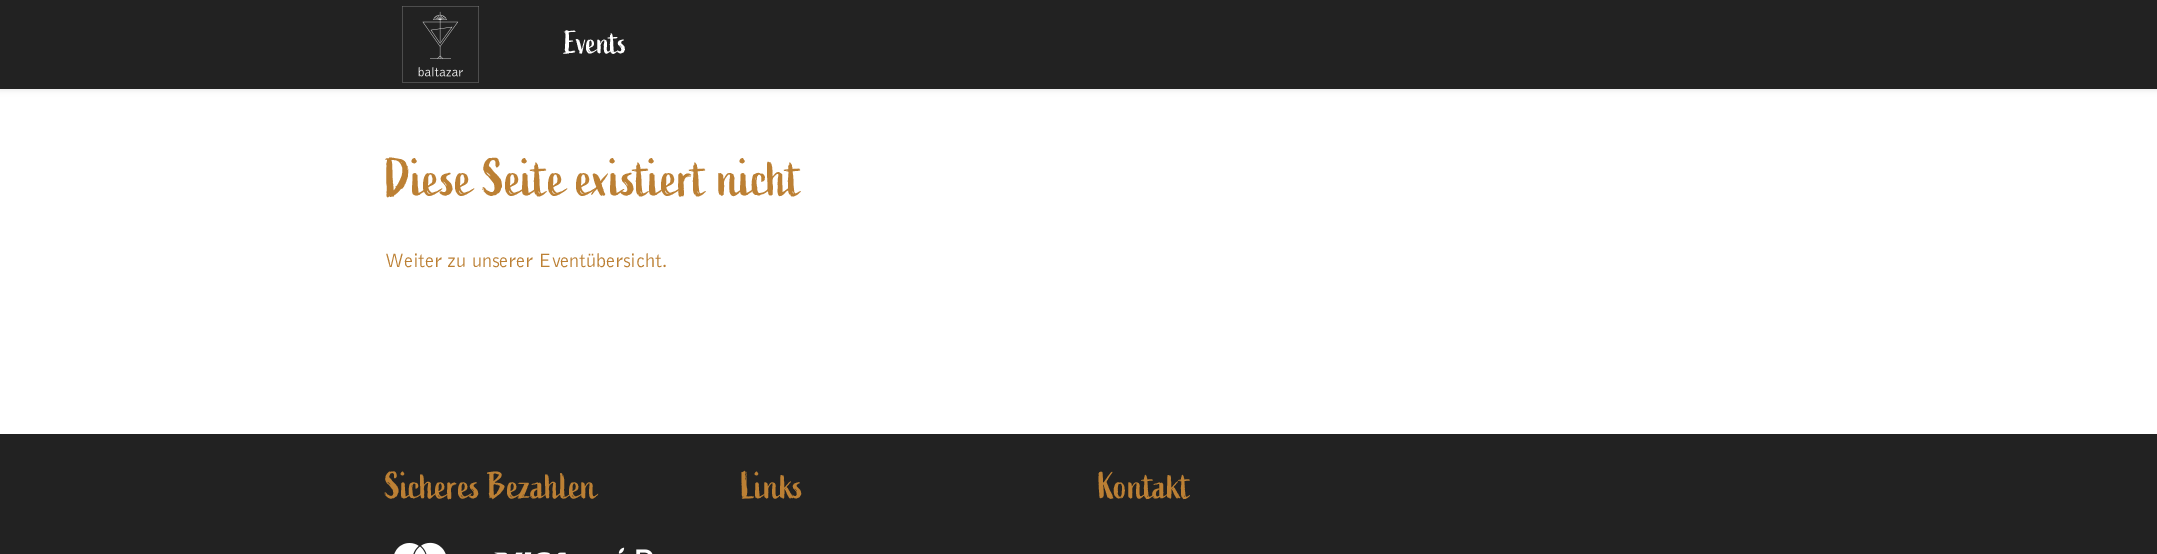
%!PS-Adobe-3.0
%%BoundingBox: 0 0 2157 554
%%LanguageLevel: 3
%%Pages: 1
%%EndComments
%%BeginProlog
/setalpha { dup .setfillconstantalpha .setstrokeconstantalpha } def
/rrect { 5 dict begin { /r /h /w /y /x } { exch def } forall
  x r add y moveto x w add y 2 copy h add r arct x w add y h add x 1 index r arct
  x y h add x y r arct x y 2 copy exch w add exch r arct closepath end } def
/softshadow { 12 dict begin { /a /b /q /h /w /y /x } { exch def } forall gsave /was 0 def
  9 -2 -9 { dup b mul 4 div /e exch def 1 sub .425 mul 2.718 exch exp 1 add a .99 .min exch div /now exch def
    1 1 now sub 1 was sub div sub setalpha /was now def
    w h .min e 2 mul add 0 gt { x e sub y e sub w e 2 mul add h e 2 mul add
      q e add b .6 mul add w h .min 2 div e add .min 0 .max rrect fill } if } for grestore end } def
/drawimage { 5 dict begin { /h /w /y /x /name } { exch def } forall
  gsave x y translate w h scale
  w h 8 [w 0 0 h 0 0] name (r) file false 3 colorimage grestore end } def
%%EndProlog
%%BeginSetup
<< /PageSize [2157 554] /PageUsesTransparency true >> setpagedevice
%%EndSetup
%%Page: 1 1
0 .pushpdf14devicefilter
0 554 translate 1 -1 scale
4 setmiterlimit
1 setgray
0 0 2157 554 rectfill
0 setgray
0 1 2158 89 0 3 0.1 softshadow
0.133 setgray
0 0 2157 89 rectfill
(images/1.raw) 402 6 77 77 drawimage
0 434 2157 120 rectfill
(images/2.raw) 394 542 52 12 drawimage
(images/3.raw) 494 552 72 2 drawimage
(images/4.raw) 618 547 35 7 drawimage
/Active-Regular [32 0 0 -32 0 0] selectfont
1 setgray
564 53 moveto (Events) show
/Active-Regular [52.5 0 0 -52.5 0 0] selectfont
0.737 0.502 0.204 setrgbcolor
385 195 moveto (Diese Seite existiert nicht) show
/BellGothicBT-Regular [20 0 0 -20 0 0] selectfont
385 267 moveto (Weiter zu unserer Eventübersicht.) show
/Active-Regular [37.5 0 0 -37.5 0 0] selectfont
385 498 moveto (Sicheres Bezahlen) show
741 498 moveto (Links) show
1098 498 moveto (Kontakt) show
.poppdf14devicefilter showpage
%%EOF
